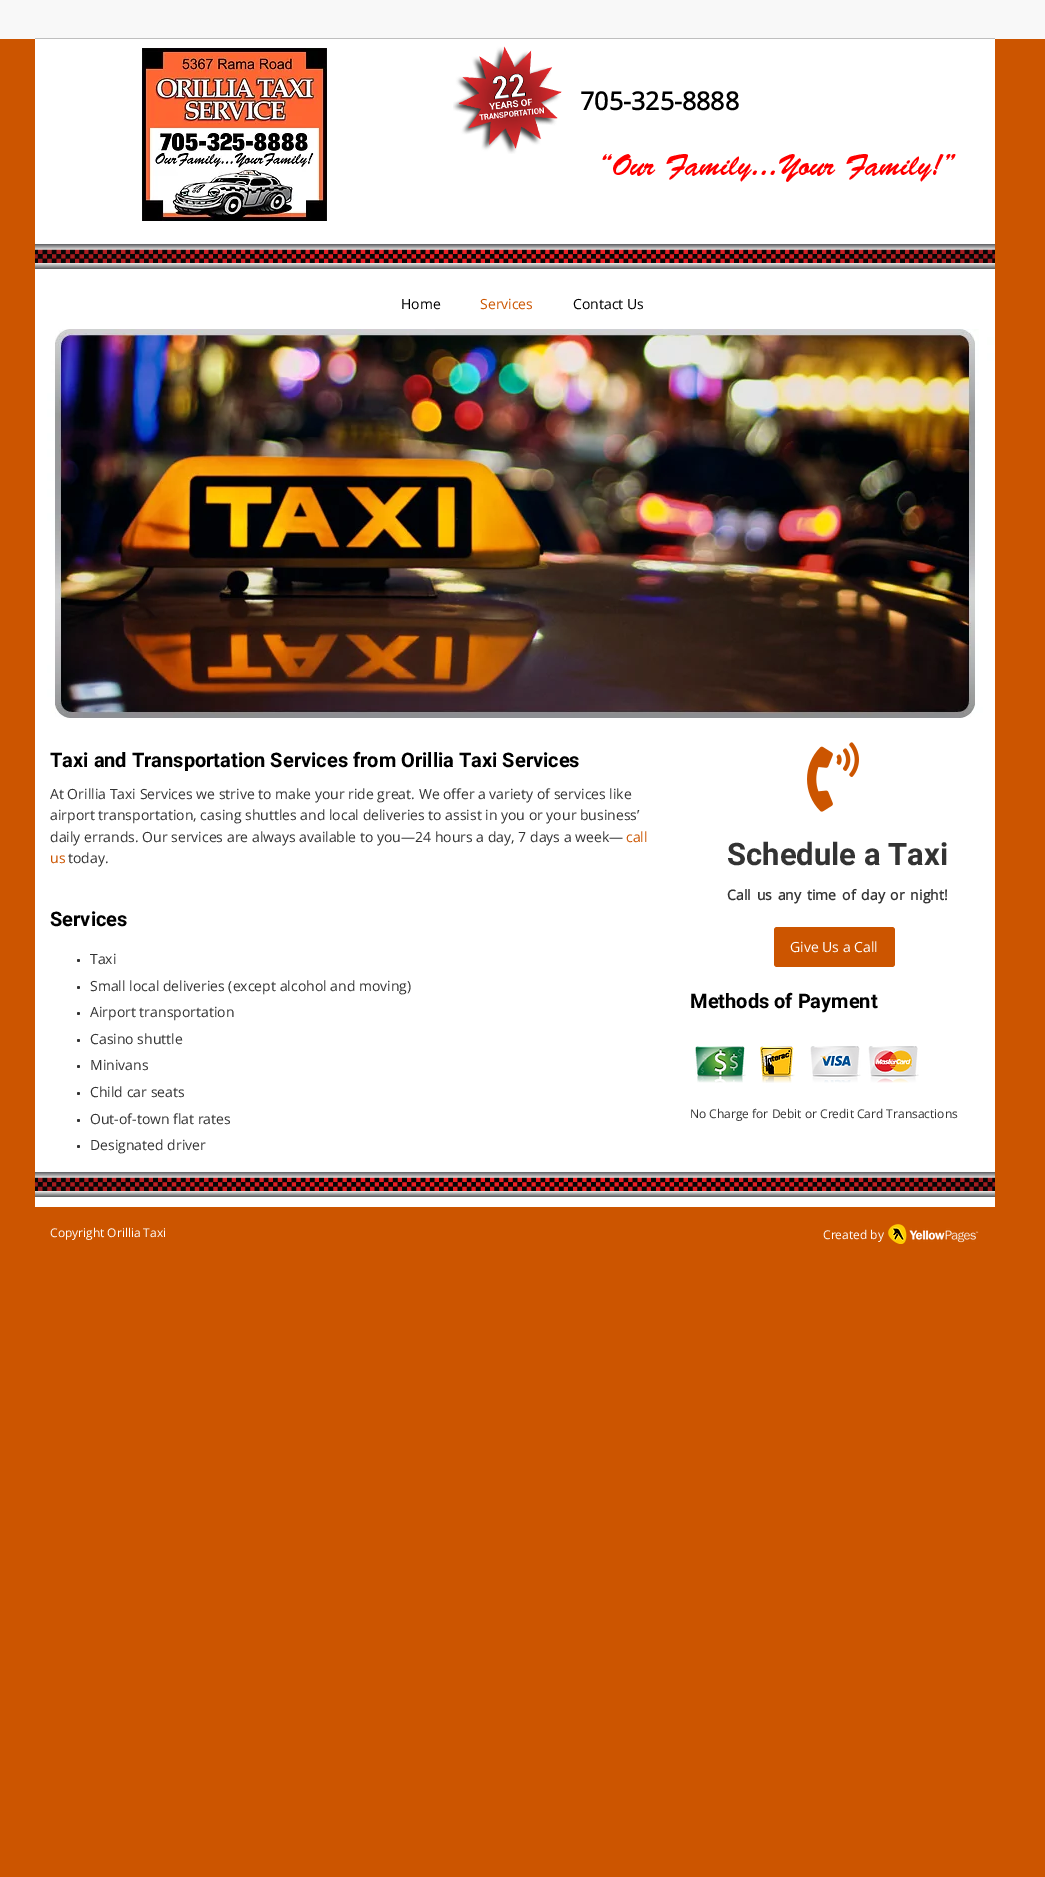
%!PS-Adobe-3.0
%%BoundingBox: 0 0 1045 1877
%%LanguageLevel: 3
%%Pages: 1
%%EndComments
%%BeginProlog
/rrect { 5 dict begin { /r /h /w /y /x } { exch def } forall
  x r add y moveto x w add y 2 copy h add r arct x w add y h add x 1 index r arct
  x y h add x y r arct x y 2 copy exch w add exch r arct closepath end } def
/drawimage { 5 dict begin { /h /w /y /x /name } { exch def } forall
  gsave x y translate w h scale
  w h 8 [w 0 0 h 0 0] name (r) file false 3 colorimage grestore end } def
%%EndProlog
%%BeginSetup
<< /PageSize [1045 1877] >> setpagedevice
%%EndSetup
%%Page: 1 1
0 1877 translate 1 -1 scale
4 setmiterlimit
0.8 0.333 0 setrgbcolor
0 0 1045 1877 rectfill
0.973 setgray
0 0 1045 39 rectfill
0.749 setgray
35 38 960 1 rectfill
1 setgray
35 39 960 290 rectfill
(images/1.raw) 142 48 185 173 drawimage
(images/2.raw) 453 46 109 108 drawimage
(images/3.raw) 602 154 354 28 drawimage
(images/4.raw) 35 244 960 25 drawimage
(images/5.raw) 35 329 960 389 drawimage
35 718 960 24 rectfill
35 742 960 465 rectfill
0.2 setgray
newpath 78.5 960.5 1.5 0 360 arc closepath fill
newpath 78.5 987.5 1.5 0 360 arc closepath fill
newpath 78.5 1013.5 1.5 0 360 arc closepath fill
newpath 78.5 1040.5 1.5 0 360 arc closepath fill
newpath 78.5 1066.5 1.5 0 360 arc closepath fill
newpath 78.5 1093.5 1.5 0 360 arc closepath fill
newpath 78.5 1120.5 1.5 0 360 arc closepath fill
newpath 78.5 1146.5 1.5 0 360 arc closepath fill
(images/6.raw) 807 742 52 70 drawimage
0.8 0.333 0 setrgbcolor
774 927 121 40 3 rrect fill
(images/7.raw) 695 1046 51 37 drawimage
(images/8.raw) 760 1046 35 37 drawimage
(images/9.raw) 810 1046 51 37 drawimage
(images/10.raw) 868 1046 51 37 drawimage
(images/4.raw) 35 1172 960 25 drawimage
(images/11.raw) 888 1224 91 20 drawimage
/OpenSans-Bold [25 0 0 -25 0 0] selectfont
0 setgray
580 110 moveto (705-325-8888) show
/OpenSans-Regular [14 0 0 -14 0 0] selectfont
401 309 moveto (Home) show
0.8 0.333 0 setrgbcolor
480 309 moveto (Services) show
0 setgray
573 309 moveto (Contact Us) show
/Roboto-Bold [20 0 0 -20 0 0] selectfont
50 767 moveto (Taxi and Transportation Services from Orillia Taxi Services) show
/OpenSans-Regular [14 0 0 -14 0 0] selectfont
0.2 setgray
50 799 moveto (At Orillia Taxi Services we strive to make your ride great. We offer a variety of services like) show
50 820 moveto (airport transportation, casing shuttles and local deliveries to assist in you or your business’) show
50 842 moveto (daily errands. Our services are always available to you—24 hours a day, 7 days a week—) show
0.8 0.333 0 setrgbcolor
626 842 moveto (call) show
50 863 moveto (us) show
0.2 setgray
68 863 moveto (today.) show
/Roboto-Bold [20 0 0 -20 0 0] selectfont
0 setgray
50 926 moveto (Services) show
/OpenSans-Regular [14 0 0 -14 0 0] selectfont
0.2 setgray
90 964 moveto (Taxi) show
90 991 moveto (Small local deliveries \(except alcohol and moving\)) show
90 1017 moveto (Airport transportation) show
90 1044 moveto (Casino shuttle) show
90 1070 moveto (Minivans) show
90 1097 moveto (Child car seats) show
90 1124 moveto (Out-of-town flat rates) show
90 1150 moveto (Designated driver) show
/Roboto-Bold [31 0 0 -31 0 0] selectfont
727 865 moveto (Schedule a Taxi) show
/OpenSans-Bold [14 0 0 -14 0 0] selectfont
727 900 moveto 2.25 0 32 (Call us any time of day or night!) widthshow
/OpenSans-Regular [14 0 0 -14 0 0] selectfont
1 setgray
790 952 moveto (Give Us a Call) show
/Roboto-Bold [20 0 0 -20 0 0] selectfont
0 setgray
690 1008 moveto (Methods of Payment) show
/OpenSans-Regular [12 0 0 -12 0 0] selectfont
0.2 setgray
690 1118 moveto (No Charge for Debit or Credit Card Transactions) show
1 setgray
50 1237 moveto (Copyright Orillia Taxi) show
823 1239 moveto (Created by) show
showpage
%%EOF
